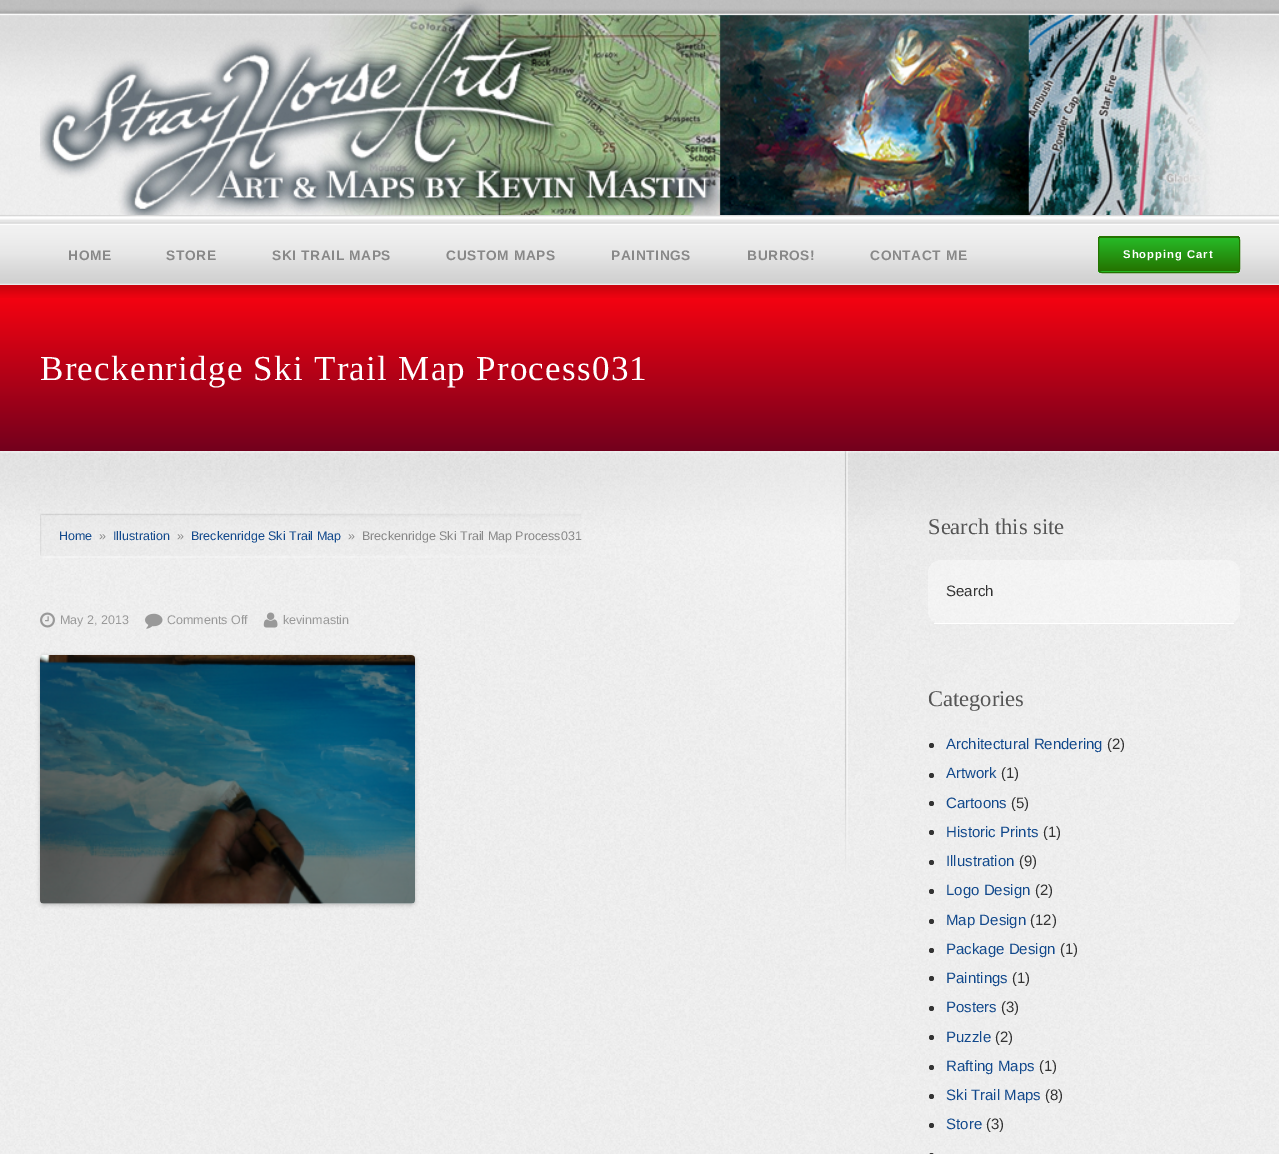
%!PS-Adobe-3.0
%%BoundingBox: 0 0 1279 1154
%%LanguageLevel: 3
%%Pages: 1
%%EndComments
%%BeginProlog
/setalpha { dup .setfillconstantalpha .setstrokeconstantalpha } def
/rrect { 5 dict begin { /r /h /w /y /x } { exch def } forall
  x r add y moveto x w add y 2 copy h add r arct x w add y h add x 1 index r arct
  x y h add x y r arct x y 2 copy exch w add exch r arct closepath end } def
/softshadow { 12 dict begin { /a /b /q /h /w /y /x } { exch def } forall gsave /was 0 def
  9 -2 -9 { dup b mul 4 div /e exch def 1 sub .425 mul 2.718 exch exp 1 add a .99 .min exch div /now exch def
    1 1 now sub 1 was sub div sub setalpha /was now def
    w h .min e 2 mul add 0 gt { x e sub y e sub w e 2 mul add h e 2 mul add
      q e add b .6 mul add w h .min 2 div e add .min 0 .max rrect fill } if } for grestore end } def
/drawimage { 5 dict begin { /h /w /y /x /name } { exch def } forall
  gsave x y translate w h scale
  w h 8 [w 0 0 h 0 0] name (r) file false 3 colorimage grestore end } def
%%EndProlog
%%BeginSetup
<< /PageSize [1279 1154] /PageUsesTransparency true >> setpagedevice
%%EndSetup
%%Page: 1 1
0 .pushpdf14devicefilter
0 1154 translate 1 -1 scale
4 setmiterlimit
1 setgray
0 0 1279 1154 rectfill
(images/1.raw) 0 451 1279 703 drawimage
(images/2.raw) 0 0 1279 285 drawimage
(images/3.raw) 40 0 1200 215 drawimage
gsave
1098 236 142 37 4 rrect clip newpath
gsave newpath 1098 236 moveto 1240 236 lineto 1240 238 lineto 1098 238 lineto closepath clip newpath
<< /ShadingType 2 /ColorSpace /DeviceRGB /Coords [1099 204 1099 238] /Extend [true true] /Function << /FunctionType 2 /Domain [0 1] /C0 [0.153 0.729 0.153] /C1 [0.141 0.451 0] /N 1 >> >> shfill grestore
gsave newpath 1098 238 moveto 1240 238 lineto 1240 271 lineto 1098 271 lineto closepath clip newpath
<< /ShadingType 2 /ColorSpace /DeviceRGB /Coords [1099 238 1099 271] /Extend [true true] /Function << /FunctionType 2 /Domain [0 1] /C0 [0.153 0.729 0.153] /C1 [0.141 0.451 0] /N 1 >> >> shfill grestore
gsave newpath 1098 271 moveto 1240 271 lineto 1240 273 lineto 1098 273 lineto closepath clip newpath
<< /ShadingType 2 /ColorSpace /DeviceRGB /Coords [1099 271 1099 305] /Extend [true true] /Function << /FunctionType 2 /Domain [0 1] /C0 [0.153 0.729 0.153] /C1 [0.141 0.451 0] /N 1 >> >> shfill grestore
grestore
0.141 0.451 0 setrgbcolor
1098.5 236.5 141 36 3.5 rrect stroke
gsave newpath 0 285 moveto 1279 285 lineto 1279 451 lineto 0 451 lineto closepath clip newpath
<< /ShadingType 2 /ColorSpace /DeviceRGB /Coords [0 285 0 451] /Extend [true true] /Function << /FunctionType 2 /Domain [0 1] /C0 [1 0.012 0.063] /C1 [0.451 0 0.114] /N 1 >> >> shfill grestore
(images/4.raw) 0 285 1279 13 drawimage
(images/5.raw) 0 451 1279 205 drawimage
(images/6.raw) 442 451 798 450 drawimage
(images/7.raw) 40 513 541 45 drawimage
(images/8.raw) 40 612 15 16 drawimage
(images/9.raw) 145 613 18 16 drawimage
(images/10.raw) 263 612 15 16 drawimage
0 setgray
40 656 375 249 4 2 0.2 softshadow
1 setgray
40 655 375 249 4 rrect fill
(images/11.raw) 40 655 375 249 drawimage
0.35 setalpha
928 560 312 64 13 rrect fill
1 setalpha
934 623 300 1 rectfill
0.2 setgray
newpath 931.5 745.5 2.5 0 360 arc closepath fill
newpath 931.5 775.5 2.5 0 360 arc closepath fill
newpath 931.5 803.5 2.5 0 360 arc closepath fill
newpath 931.5 832.5 2.5 0 360 arc closepath fill
newpath 931.5 862.5 2.5 0 360 arc closepath fill
newpath 931.5 891.5 2.5 0 360 arc closepath fill
newpath 931.5 921.5 2.5 0 360 arc closepath fill
newpath 931.5 950.5 2.5 0 360 arc closepath fill
newpath 931.5 978.5 2.5 0 360 arc closepath fill
newpath 931.5 1008.5 2.5 0 360 arc closepath fill
newpath 931.5 1037.5 2.5 0 360 arc closepath fill
newpath 931.5 1067.5 2.5 0 360 arc closepath fill
newpath 931.5 1096.5 2.5 0 360 arc closepath fill
newpath 931.5 1125.5 2.5 0 360 arc closepath fill
929 1153 5 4 2.5 rrect fill
/LiberationSans-Bold [13.75 0 0 -13.75 0 0] selectfont
0.533 setgray
68 260 moveto 0.6 0 (HOME) ashow
166 260 moveto 0.6 0 (STORE) ashow
272 260 moveto 0.6 0 (SKI TRAIL MAPS) ashow
446 260 moveto 0.6 0 (CUSTOM MAPS) ashow
611 260 moveto 0.6 0 (PAINTINGS) ashow
747 260 moveto 0.6 0 (BURROS!) ashow
870 260 moveto 0.6 0 (CONTACT ME) ashow
/LiberationSans-Bold [11.25 0 0 -11.25 0 0] selectfont
1 setgray
1123 258 moveto 1 0 (Shopping Cart) ashow
/LiberationSerif-Regular [35 0 0 -35 0 0] selectfont
40 380 moveto 1.25 0 (Breckenridge Ski Trail Map Process031) ashow
/LiberationSans-Regular [12.5 0 0 -12.5 0 0] selectfont
0.071 0.286 0.549 setrgbcolor
59 540 moveto (Home) show
0.533 setgray
99 540 moveto (») show
0.071 0.286 0.549 setrgbcolor
113 540 moveto (Illustration) show
0.533 setgray
177 540 moveto (») show
0.071 0.286 0.549 setrgbcolor
191 540 moveto (Breckenridge Ski Trail Map) show
0.533 setgray
348 540 moveto (») show
362 540 moveto (Breckenridge Ski Trail Map Process031) show
0.6 setgray
60 624 moveto (May 2, 2013) show
167 624 moveto (Comments Off) show
283 624 moveto (kevinmastin) show
/LiberationSerif-Regular [22.5 0 0 -22.5 0 0] selectfont
0.333 setgray
928 534 moveto (Search this site) show
/LiberationSans-Regular [15 0 0 -15 0 0] selectfont
0.2 setgray
946 596 moveto (Search) show
/LiberationSerif-Regular [22.5 0 0 -22.5 0 0] selectfont
0.333 setgray
928 706 moveto (Categories) show
/LiberationSans-Regular [15 0 0 -15 0 0] selectfont
0.071 0.286 0.549 setrgbcolor
946 749 moveto (Architectural Rendering) show
0.2 setgray
1107 749 moveto (\(2\)) show
0.071 0.286 0.549 setrgbcolor
946 778 moveto (Artwork) show
0.2 setgray
1001 778 moveto (\(1\)) show
0.071 0.286 0.549 setrgbcolor
946 808 moveto (Cartoons) show
0.2 setgray
1011 808 moveto (\(5\)) show
0.071 0.286 0.549 setrgbcolor
946 837 moveto (Historic Prints) show
0.2 setgray
1043 837 moveto (\(1\)) show
0.071 0.286 0.549 setrgbcolor
946 866 moveto (Illustration) show
0.2 setgray
1019 866 moveto (\(9\)) show
0.071 0.286 0.549 setrgbcolor
946 895 moveto (Logo Design) show
0.2 setgray
1035 895 moveto (\(2\)) show
0.071 0.286 0.549 setrgbcolor
946 925 moveto (Map Design) show
0.2 setgray
1030 925 moveto (\(12\)) show
0.071 0.286 0.549 setrgbcolor
946 954 moveto (Package Design) show
0.2 setgray
1060 954 moveto (\(1\)) show
0.071 0.286 0.549 setrgbcolor
946 983 moveto (Paintings) show
0.2 setgray
1012 983 moveto (\(1\)) show
0.071 0.286 0.549 setrgbcolor
946 1012 moveto (Posters) show
0.2 setgray
1001 1012 moveto (\(3\)) show
0.071 0.286 0.549 setrgbcolor
946 1042 moveto (Puzzle) show
0.2 setgray
995 1042 moveto (\(2\)) show
0.071 0.286 0.549 setrgbcolor
946 1071 moveto (Rafting Maps) show
0.2 setgray
1039 1071 moveto (\(1\)) show
0.071 0.286 0.549 setrgbcolor
946 1100 moveto (Ski Trail Maps) show
0.2 setgray
1045 1100 moveto (\(8\)) show
0.071 0.286 0.549 setrgbcolor
946 1129 moveto (Store) show
0.2 setgray
986 1129 moveto (\(3\)) show
.poppdf14devicefilter showpage
%%EOF
